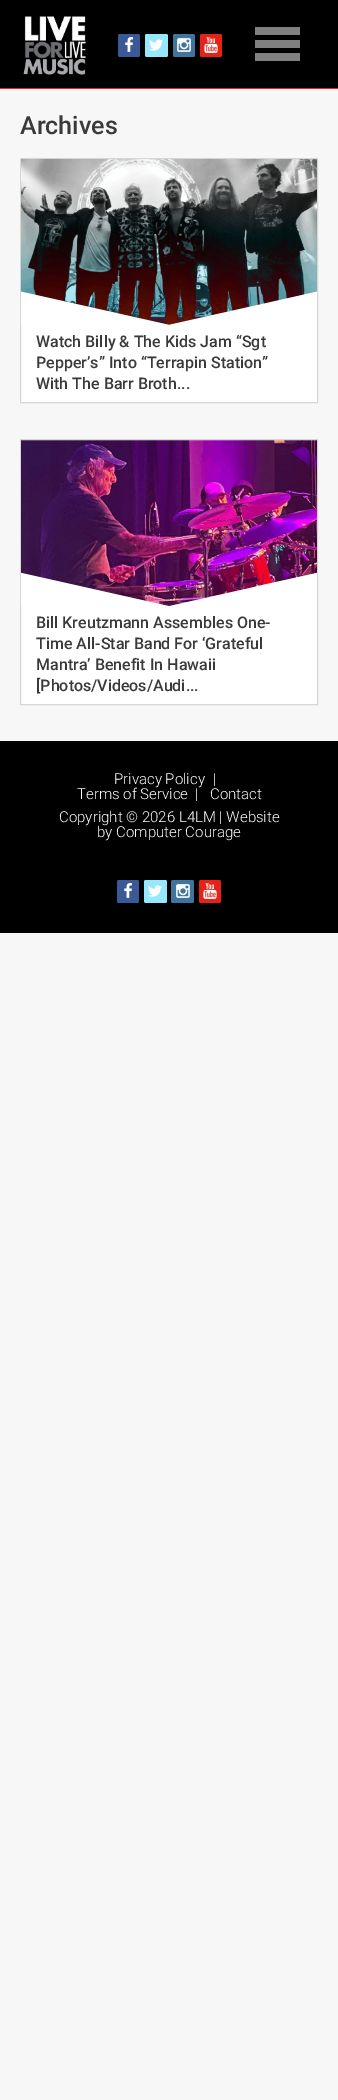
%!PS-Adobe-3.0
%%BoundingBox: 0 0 338 2100
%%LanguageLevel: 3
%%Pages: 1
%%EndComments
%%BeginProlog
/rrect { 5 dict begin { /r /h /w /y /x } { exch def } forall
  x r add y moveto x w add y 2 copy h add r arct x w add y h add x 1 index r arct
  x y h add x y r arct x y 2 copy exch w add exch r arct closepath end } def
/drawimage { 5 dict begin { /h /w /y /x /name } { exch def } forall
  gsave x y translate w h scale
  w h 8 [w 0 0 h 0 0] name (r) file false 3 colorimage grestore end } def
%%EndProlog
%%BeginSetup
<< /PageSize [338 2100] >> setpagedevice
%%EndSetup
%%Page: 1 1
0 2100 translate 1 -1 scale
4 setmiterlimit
0.969 setgray
0 0 338 2100 rectfill
0 setgray
0 0 338 88 rectfill
0.933 0.11 0.145 setrgbcolor
0 88 338 1 rectfill
(images/1.raw) 23 16 63 59 drawimage
0.231 0.345 0.592 setrgbcolor
118 34 22 23 2 rrect fill
(images/2.raw) 125 37 8 15 drawimage
0.588 0.91 0.996 setrgbcolor
145 34 23 23 2 rrect fill
(images/3.raw) 149 39 14 12 drawimage
0.251 0.455 0.612 setrgbcolor
173 34 22 23 2 rrect fill
(images/4.raw) 177 38 14 14 drawimage
0.902 0.129 0.09 setrgbcolor
200 34 22 23 2 rrect fill
(images/5.raw) 204 37 14 16 drawimage
0.502 setgray
255 27 45 8 rectfill
255 40 45 8 rectfill
255 53 45 8 rectfill
1 setgray
21 291 296 111 rectfill
0.835 0.839 0.839 setrgbcolor
20.5 158.5 297 244 rectstroke
(images/6.raw) 21 159 296 166 drawimage
1 setgray
newpath 20.5 439.5 moveto 317.5 439.5 lineto 317.5 704.5 lineto 20.5 704.5 lineto closepath gsave fill grestore
0.835 0.839 0.839 setrgbcolor
stroke
(images/7.raw) 21 440 296 166 drawimage
0 setgray
0 741 338 192 rectfill
0.231 0.345 0.592 setrgbcolor
117 880 22 23 2 rrect fill
(images/2.raw) 124 883 8 15 drawimage
0.588 0.91 0.996 setrgbcolor
144 880 23 23 2 rrect fill
(images/3.raw) 148 885 14 12 drawimage
0.251 0.455 0.612 setrgbcolor
171 880 23 23 2 rrect fill
(images/4.raw) 176 884 14 14 drawimage
0.902 0.129 0.09 setrgbcolor
199 880 22 23 2 rrect fill
(images/5.raw) 203 883 14 16 drawimage
/Roboto-Medium [25 0 0 -25 0 0] selectfont
0.227 setgray
20 134 moveto (Archives) show
/Roboto-Medium [16 0 0 -16 0 0] selectfont
36 347 moveto (Watch Billy & The Kids Jam “Sgt) show
36 368 moveto (Pepper’s” Into “Terrapin Station”) show
36 389 moveto (With The Barr Broth...) show
36 628 moveto (Bill Kreutzmann Assembles One-) show
36 649 moveto (Time All-Star Band For ‘Grateful) show
36 670 moveto (Mantra’ Benefit In Hawaii) show
36 691 moveto ([Photos/Videos/Audi...) show
/Roboto-Light [15 0 0 -15 0 0] selectfont
1 setgray
114 784 moveto (Privacy Policy) show
213 784 moveto (|) show
77 799 moveto (Terms of Service) show
195 799 moveto (|) show
210 799 moveto (Contact) show
59 822 moveto (Copyright © 2026 L4LM | Website) show
97 837 moveto (by Computer Courage) show
showpage
%%EOF
